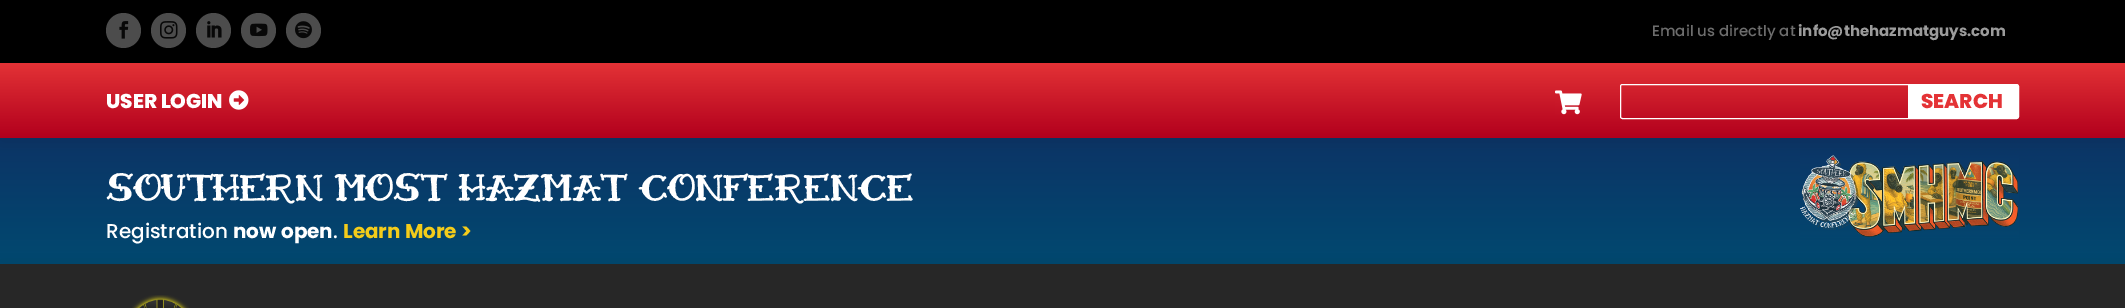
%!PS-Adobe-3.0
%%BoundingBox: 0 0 2125 308
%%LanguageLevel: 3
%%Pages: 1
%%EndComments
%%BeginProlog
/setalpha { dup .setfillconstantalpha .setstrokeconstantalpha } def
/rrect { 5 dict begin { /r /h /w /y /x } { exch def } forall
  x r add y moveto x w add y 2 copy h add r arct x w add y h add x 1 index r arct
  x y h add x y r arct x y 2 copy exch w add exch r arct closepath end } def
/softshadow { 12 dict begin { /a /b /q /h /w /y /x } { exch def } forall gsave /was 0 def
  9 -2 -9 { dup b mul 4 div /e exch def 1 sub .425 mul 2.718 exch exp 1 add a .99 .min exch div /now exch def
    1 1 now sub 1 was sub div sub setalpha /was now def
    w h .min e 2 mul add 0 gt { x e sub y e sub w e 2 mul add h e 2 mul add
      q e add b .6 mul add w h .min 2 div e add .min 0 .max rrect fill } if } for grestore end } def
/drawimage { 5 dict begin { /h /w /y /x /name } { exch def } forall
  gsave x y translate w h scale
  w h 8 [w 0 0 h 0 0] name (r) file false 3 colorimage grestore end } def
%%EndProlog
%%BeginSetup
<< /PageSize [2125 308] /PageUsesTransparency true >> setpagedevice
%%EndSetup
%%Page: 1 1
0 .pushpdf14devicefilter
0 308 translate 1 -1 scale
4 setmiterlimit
1 setgray
0 0 2125 308 rectfill
0 setgray
0 0 2125 63 rectfill
0.298 setgray
newpath 123.5 30.5 17.5 0 360 arc closepath fill
(images/1.raw) 119 21 10 18 drawimage
newpath 168.5 30.5 17.5 0 360 arc closepath fill
(images/2.raw) 160 21 18 18 drawimage
newpath 213.5 30.5 17.5 0 360 arc closepath fill
(images/3.raw) 207 21 15 17 drawimage
newpath 258.5 30.5 17.5 0 360 arc closepath fill
(images/4.raw) 250 23 18 14 drawimage
newpath 303.5 30.5 17.5 0 360 arc closepath fill
(images/5.raw) 295 21 17 18 drawimage
gsave newpath 0 138 moveto 2125 138 lineto 2125 264 lineto 0 264 lineto closepath clip newpath
<< /ShadingType 2 /ColorSpace /DeviceRGB /Coords [1063 137 1063 264] /Extend [true true] /Function << /FunctionType 2 /Domain [0 1] /C0 [0.047 0.204 0.4] /C1 [0.004 0.286 0.439] /N 1 >> >> shfill grestore
(images/8.raw) 1800 155 219 83 drawimage
0 setgray
0 65 2125 75 0 11 0.1 softshadow
gsave newpath 0 63 moveto 2125 63 lineto 2125 138 lineto 0 138 lineto closepath clip newpath
<< /ShadingType 2 /ColorSpace /DeviceRGB /Coords [1063 62 1063 138] /Extend [true true] /Function << /FunctionType 3 /Domain [0 1] /Functions [<< /FunctionType 2 /Domain [0 1] /C0 [0.894 0.2 0.212] /C1 [0.698 0 0.114] /N 1 >> << /FunctionType 2 /Domain [0 1] /C0 [0.698 0 0.114] /C1 [0.698 0 0.114] /N 1 >>] /Bounds [0.99] /Encode [0 1 0 1] >> >> shfill grestore
(images/6.raw) 229 90 20 20 drawimage
(images/7.raw) 1555 90 27 25 drawimage
1 setgray
1620.5 84.5 398 34 2 rrect stroke
newpath 1908 85 moveto 2017 85 lineto 2017.5 85 2018 85.5 2018 86 curveto 2018 117 lineto 2018 117.5 2017.5 118 2017 118 curveto 1908 118 lineto closepath fill
0 setgray
0 266 2125 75 0 11 0.1 softshadow
0.153 setgray
0 264 2125 44 rectfill
(images/9.raw) 132 295 57 13 drawimage
/Poppins-Medium [15 0 0 -15 0 0] selectfont
0.427 setgray
1652 36 moveto (Email us directly at) show
/Poppins-Bold [15 0 0 -15 0 0] selectfont
0.608 setgray
1798 36 moveto (info@thehazmatguys.com) show
/Poppins-ExtraBold [20 0 0 -20 0 0] selectfont
1 setgray
106 108 moveto (USER LOGIN) show
0.894 0.2 0.212 setrgbcolor
1921 108 moveto (SEARCH) show
/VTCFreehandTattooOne-Bold [38.75 0 0 -38.75 0 0] selectfont
1 setgray
106 201 moveto (SOUTHERN MOST HAZMAT CONFERENCE) show
/Poppins-Medium [20 0 0 -20 0 0] selectfont
106 238 moveto (Registration) show
/Poppins-Bold [20 0 0 -20 0 0] selectfont
233 238 moveto (now open) show
/Poppins-Medium [20 0 0 -20 0 0] selectfont
333 238 moveto (.) show
/Poppins-Bold [20 0 0 -20 0 0] selectfont
0.957 0.8 0.102 setrgbcolor
343 238 moveto (Learn More >) show
.poppdf14devicefilter showpage
%%EOF
